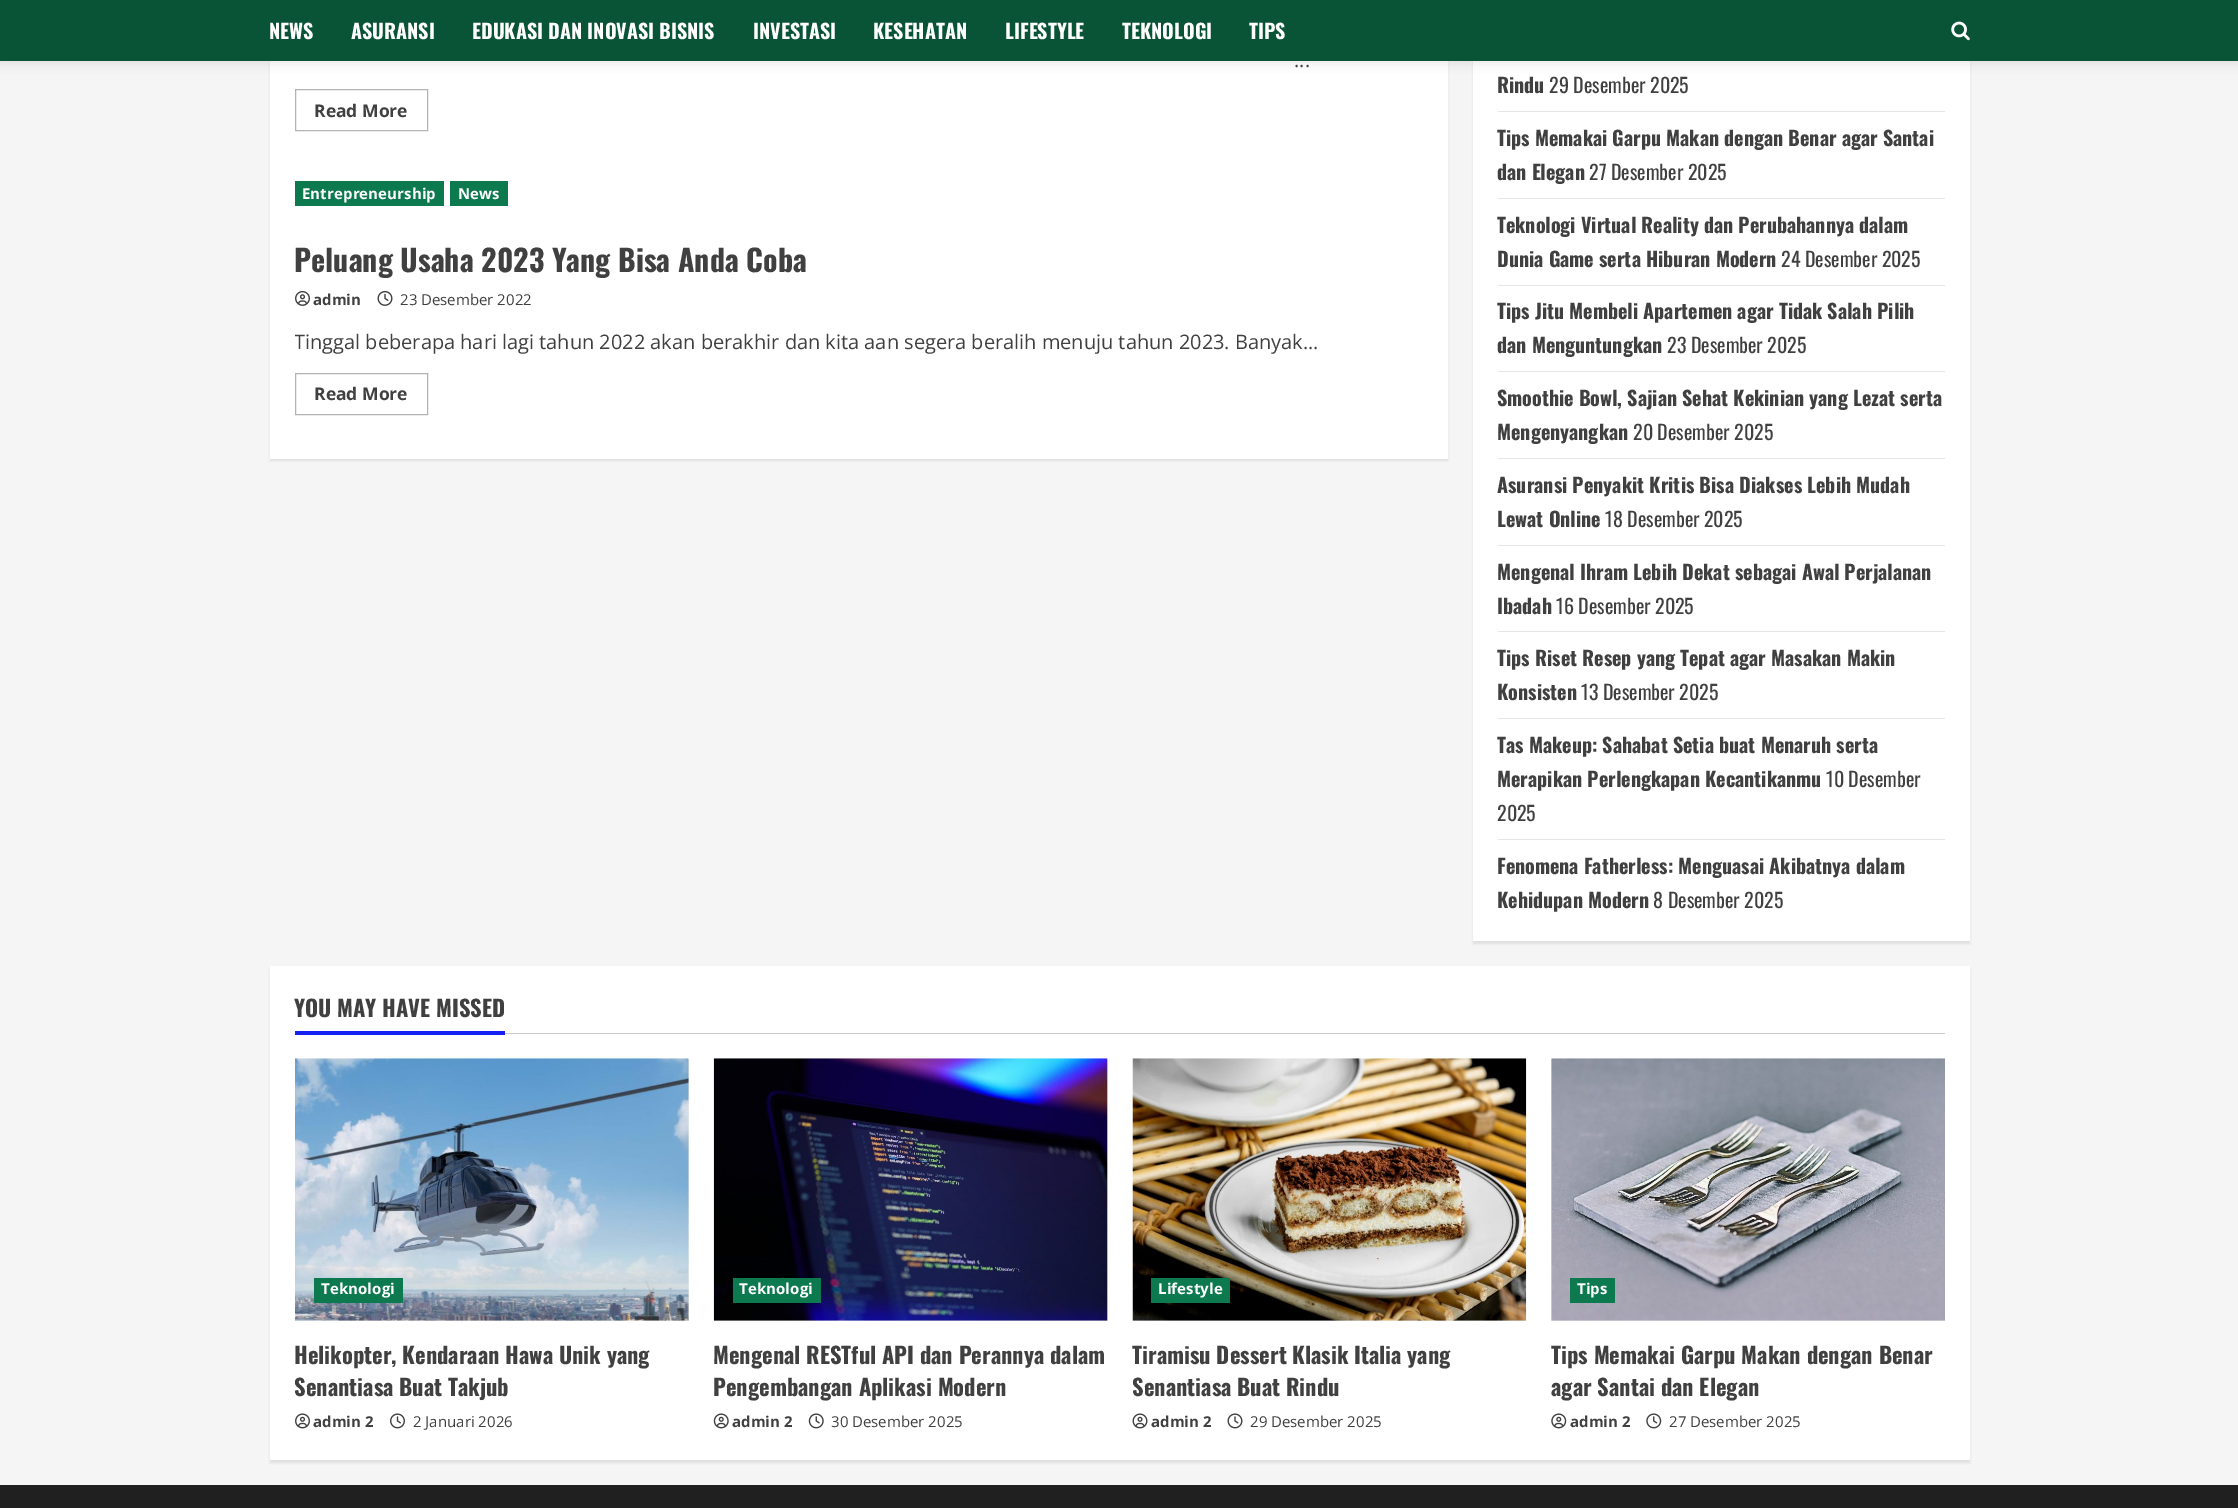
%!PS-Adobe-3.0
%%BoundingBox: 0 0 2238 1508
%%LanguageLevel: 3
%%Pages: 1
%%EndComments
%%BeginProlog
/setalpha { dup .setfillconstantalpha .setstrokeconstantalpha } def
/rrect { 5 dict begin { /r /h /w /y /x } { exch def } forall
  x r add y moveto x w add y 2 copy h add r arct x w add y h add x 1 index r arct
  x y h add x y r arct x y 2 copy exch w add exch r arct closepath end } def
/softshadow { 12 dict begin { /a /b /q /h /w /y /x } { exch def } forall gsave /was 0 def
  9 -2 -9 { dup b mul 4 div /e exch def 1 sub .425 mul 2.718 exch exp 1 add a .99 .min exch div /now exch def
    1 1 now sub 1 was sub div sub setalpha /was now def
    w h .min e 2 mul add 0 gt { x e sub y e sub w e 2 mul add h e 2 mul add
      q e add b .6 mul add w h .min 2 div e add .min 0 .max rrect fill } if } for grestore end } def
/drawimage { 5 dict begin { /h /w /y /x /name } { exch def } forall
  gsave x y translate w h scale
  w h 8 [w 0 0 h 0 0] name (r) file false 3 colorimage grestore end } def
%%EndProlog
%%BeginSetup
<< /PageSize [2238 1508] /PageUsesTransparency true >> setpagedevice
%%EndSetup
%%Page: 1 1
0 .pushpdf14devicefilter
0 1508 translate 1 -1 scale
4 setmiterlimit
0.961 setgray
0 0 2238 1508 rectfill
0 setgray
270 -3 1178 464 0 1 0.08 softshadow
1 setgray
270 61 1178 398 rectfill
0 setgray
1473 -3 497 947 0 1 0.08 softshadow
1 setgray
1473 61 497 880 rectfill
0 setgray
0 3 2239 61 0 5 0.08 softshadow
0.035 0.329 0.216 setrgbcolor
0 0 2238 61 rectfill
(images/1.raw) 1951 21 19 20 drawimage
0.702 setgray
295.5 89.5 132 41 rectstroke
0.047 0.475 0.31 setrgbcolor
295 181 149 25 rectfill
450 181 58 25 rectfill
(images/2.raw) 295 290 15 16 drawimage
(images/3.raw) 377 291 16 15 drawimage
0.702 setgray
295.5 373.5 132 41 rectstroke
0.902 setgray
1498 111 447 1 rectfill
1498 198 447 1 rectfill
1498 285 447 1 rectfill
1498 371 447 1 rectfill
1498 458 447 1 rectfill
1498 545 447 1 rectfill
1498 631 447 1 rectfill
1498 718 447 1 rectfill
1498 839 447 1 rectfill
0 setgray
270 969 1700 494 0 1 0.08 softshadow
1 setgray
270 966 1700 494 rectfill
0.8 setgray
505 1033 1440 1 rectfill
0.082 0.125 0.949 setrgbcolor
295 1031 210 4 rectfill
0.925 setgray
295 1059 394 262 rectfill
(images/4.raw) 295 1058 394 263 drawimage
0.047 0.475 0.31 setrgbcolor
314 1278 89 25 rectfill
(images/5.raw) 295 1413 15 16 drawimage
(images/6.raw) 390 1413 15 16 drawimage
0.925 setgray
714 1059 394 262 rectfill
(images/7.raw) 713 1058 395 263 drawimage
0.047 0.475 0.31 setrgbcolor
733 1278 88 25 rectfill
(images/8.raw) 713 1413 16 16 drawimage
(images/9.raw) 808 1413 16 16 drawimage
0.925 setgray
1133 1320 393 1 rectfill
(images/10.raw) 1132 1058 395 263 drawimage
0.047 0.475 0.31 setrgbcolor
1151 1278 79 25 rectfill
(images/11.raw) 1132 1413 16 16 drawimage
(images/12.raw) 1227 1413 16 16 drawimage
0.925 setgray
1551 1059 394 262 rectfill
(images/13.raw) 1551 1058 394 263 drawimage
0.047 0.475 0.31 setrgbcolor
1570 1278 45 25 rectfill
(images/14.raw) 1551 1413 16 16 drawimage
(images/15.raw) 1646 1413 16 16 drawimage
0.125 setgray
0 1485 2238 23 rectfill
/Oswald-Bold [20 0 0 -20 0 0] selectfont
1 setgray
269 39 moveto (NEWS) show
351 39 moveto (ASURANSI) show
472 39 moveto (EDUKASI DAN INOVASI BISNIS) show
753 39 moveto (INVESTASI) show
873 39 moveto (KESEHATAN) show
1005 39 moveto (LIFESTYLE) show
1122 39 moveto (TEKNOLOGI) show
1249 39 moveto (TIPS) show
/OpenSans-Regular [20 0 0 -20 0 0] selectfont
0.251 setgray
1294 67 moveto (...) show
/OpenSans-Bold [17.5 0 0 -17.5 0 0] selectfont
314 117 moveto (Read More) show
/OpenSans-Bold [15 0 0 -15 0 0] selectfont
1 setgray
302 199 moveto 0.1 0 (Entrepreneurship) ashow
458 199 moveto 0.1 0 (News) ashow
/Oswald-Bold [30 0 0 -30 0 0] selectfont
0.251 setgray
294 272 moveto (Peluang Usaha 2023 Yang Bisa Anda Coba) show
/OpenSans-Bold [15 0 0 -15 0 0] selectfont
313 305 moveto (admin) show
/OpenSans-Regular [15 0 0 -15 0 0] selectfont
400 305 moveto (23 Desember 2022) show
gsave
295 213 1128 221 rectclip
/OpenSans-Regular [20 0 0 -20 0 0] selectfont
294 349 moveto (Tinggal beberapa hari lagi tahun 2022 akan berakhir dan kita aan segera beralih menuju tahun 2023. Banyak...) show
grestore
/OpenSans-Bold [17.5 0 0 -17.5 0 0] selectfont
314 400 moveto (Read More) show
/Oswald-Bold [20 0 0 -20 0 0] selectfont
1497 93 moveto (Rindu) show
/Oswald-Regular [20 0 0 -20 0 0] selectfont
1549 93 moveto (29 Desember 2025) show
/Oswald-Bold [20 0 0 -20 0 0] selectfont
1497 146 moveto (Tips Memakai Garpu Makan dengan Benar agar Santai) show
1497 180 moveto (dan Elegan) show
/Oswald-Regular [20 0 0 -20 0 0] selectfont
1589 180 moveto (27 Desember 2025) show
/Oswald-Bold [20 0 0 -20 0 0] selectfont
1497 233 moveto (Teknologi Virtual Reality dan Perubahannya dalam) show
1497 267 moveto (Dunia Game serta Hiburan Modern) show
/Oswald-Regular [20 0 0 -20 0 0] selectfont
1781 267 moveto (24 Desember 2025) show
/Oswald-Bold [20 0 0 -20 0 0] selectfont
1497 319 moveto (Tips Jitu Membeli Apartemen agar Tidak Salah Pilih) show
1497 353 moveto (dan Menguntungkan) show
/Oswald-Regular [20 0 0 -20 0 0] selectfont
1667 353 moveto (23 Desember 2025) show
/Oswald-Bold [20 0 0 -20 0 0] selectfont
1497 406 moveto (Smoothie Bowl, Sajian Sehat Kekinian yang Lezat serta) show
1497 440 moveto (Mengenyangkan) show
/Oswald-Regular [20 0 0 -20 0 0] selectfont
1633 440 moveto (20 Desember 2025) show
/Oswald-Bold [20 0 0 -20 0 0] selectfont
1497 493 moveto (Asuransi Penyakit Kritis Bisa Diakses Lebih Mudah) show
1497 527 moveto (Lewat Online) show
/Oswald-Regular [20 0 0 -20 0 0] selectfont
1605 527 moveto (18 Desember 2025) show
/Oswald-Bold [20 0 0 -20 0 0] selectfont
1497 580 moveto (Mengenal Ihram Lebih Dekat sebagai Awal Perjalanan) show
1497 614 moveto (Ibadah) show
/Oswald-Regular [20 0 0 -20 0 0] selectfont
1556 614 moveto (16 Desember 2025) show
/Oswald-Bold [20 0 0 -20 0 0] selectfont
1497 666 moveto (Tips Riset Resep yang Tepat agar Masakan Makin) show
1497 700 moveto (Konsisten) show
/Oswald-Regular [20 0 0 -20 0 0] selectfont
1581 700 moveto (13 Desember 2025) show
/Oswald-Bold [20 0 0 -20 0 0] selectfont
1497 753 moveto (Tas Makeup: Sahabat Setia buat Menaruh serta) show
1497 787 moveto (Merapikan Perlengkapan Kecantikanmu) show
/Oswald-Regular [20 0 0 -20 0 0] selectfont
1826 787 moveto (10 Desember) show
1497 821 moveto (2025) show
/Oswald-Bold [20 0 0 -20 0 0] selectfont
1497 874 moveto (Fenomena Fatherless: Menguasai Akibatnya dalam) show
1497 908 moveto (Kehidupan Modern) show
/Oswald-Regular [20 0 0 -20 0 0] selectfont
1653 908 moveto (8 Desember 2025) show
/Oswald-Bold [22.5 0 0 -22.5 0 0] selectfont
294 1017 moveto (YOU MAY HAVE MISSED) show
/OpenSans-Bold [15 0 0 -15 0 0] selectfont
1 setgray
321 1294 moveto 0.1 0 (Teknologi) ashow
/Oswald-Bold [22.5 0 0 -22.5 0 0] selectfont
0.251 setgray
294 1364 moveto (Helikopter, Kendaraan Hawa Unik yang) show
294 1396 moveto (Senantiasa Buat Takjub) show
/OpenSans-Bold [15 0 0 -15 0 0] selectfont
313 1427 moveto (admin 2) show
/OpenSans-Regular [15 0 0 -15 0 0] selectfont
413 1427 moveto (2 Januari 2026) show
/OpenSans-Bold [15 0 0 -15 0 0] selectfont
1 setgray
739 1294 moveto 0.1 0 (Teknologi) ashow
/Oswald-Bold [22.5 0 0 -22.5 0 0] selectfont
0.251 setgray
713 1364 moveto (Mengenal RESTful API dan Perannya dalam) show
713 1396 moveto (Pengembangan Aplikasi Modern) show
/OpenSans-Bold [15 0 0 -15 0 0] selectfont
732 1427 moveto (admin 2) show
/OpenSans-Regular [15 0 0 -15 0 0] selectfont
831 1427 moveto (30 Desember 2025) show
/OpenSans-Bold [15 0 0 -15 0 0] selectfont
1 setgray
1158 1294 moveto 0.1 0 (Lifestyle) ashow
/Oswald-Bold [22.5 0 0 -22.5 0 0] selectfont
0.251 setgray
1132 1364 moveto (Tiramisu Dessert Klasik Italia yang) show
1132 1396 moveto (Senantiasa Buat Rindu) show
/OpenSans-Bold [15 0 0 -15 0 0] selectfont
1151 1427 moveto (admin 2) show
/OpenSans-Regular [15 0 0 -15 0 0] selectfont
1250 1427 moveto (29 Desember 2025) show
/OpenSans-Bold [15 0 0 -15 0 0] selectfont
1 setgray
1577 1294 moveto 0.1 0 (Tips) ashow
/Oswald-Bold [22.5 0 0 -22.5 0 0] selectfont
0.251 setgray
1551 1364 moveto (Tips Memakai Garpu Makan dengan Benar) show
1551 1396 moveto (agar Santai dan Elegan) show
/OpenSans-Bold [15 0 0 -15 0 0] selectfont
1570 1427 moveto (admin 2) show
/OpenSans-Regular [15 0 0 -15 0 0] selectfont
1669 1427 moveto (27 Desember 2025) show
.poppdf14devicefilter showpage
%%EOF
